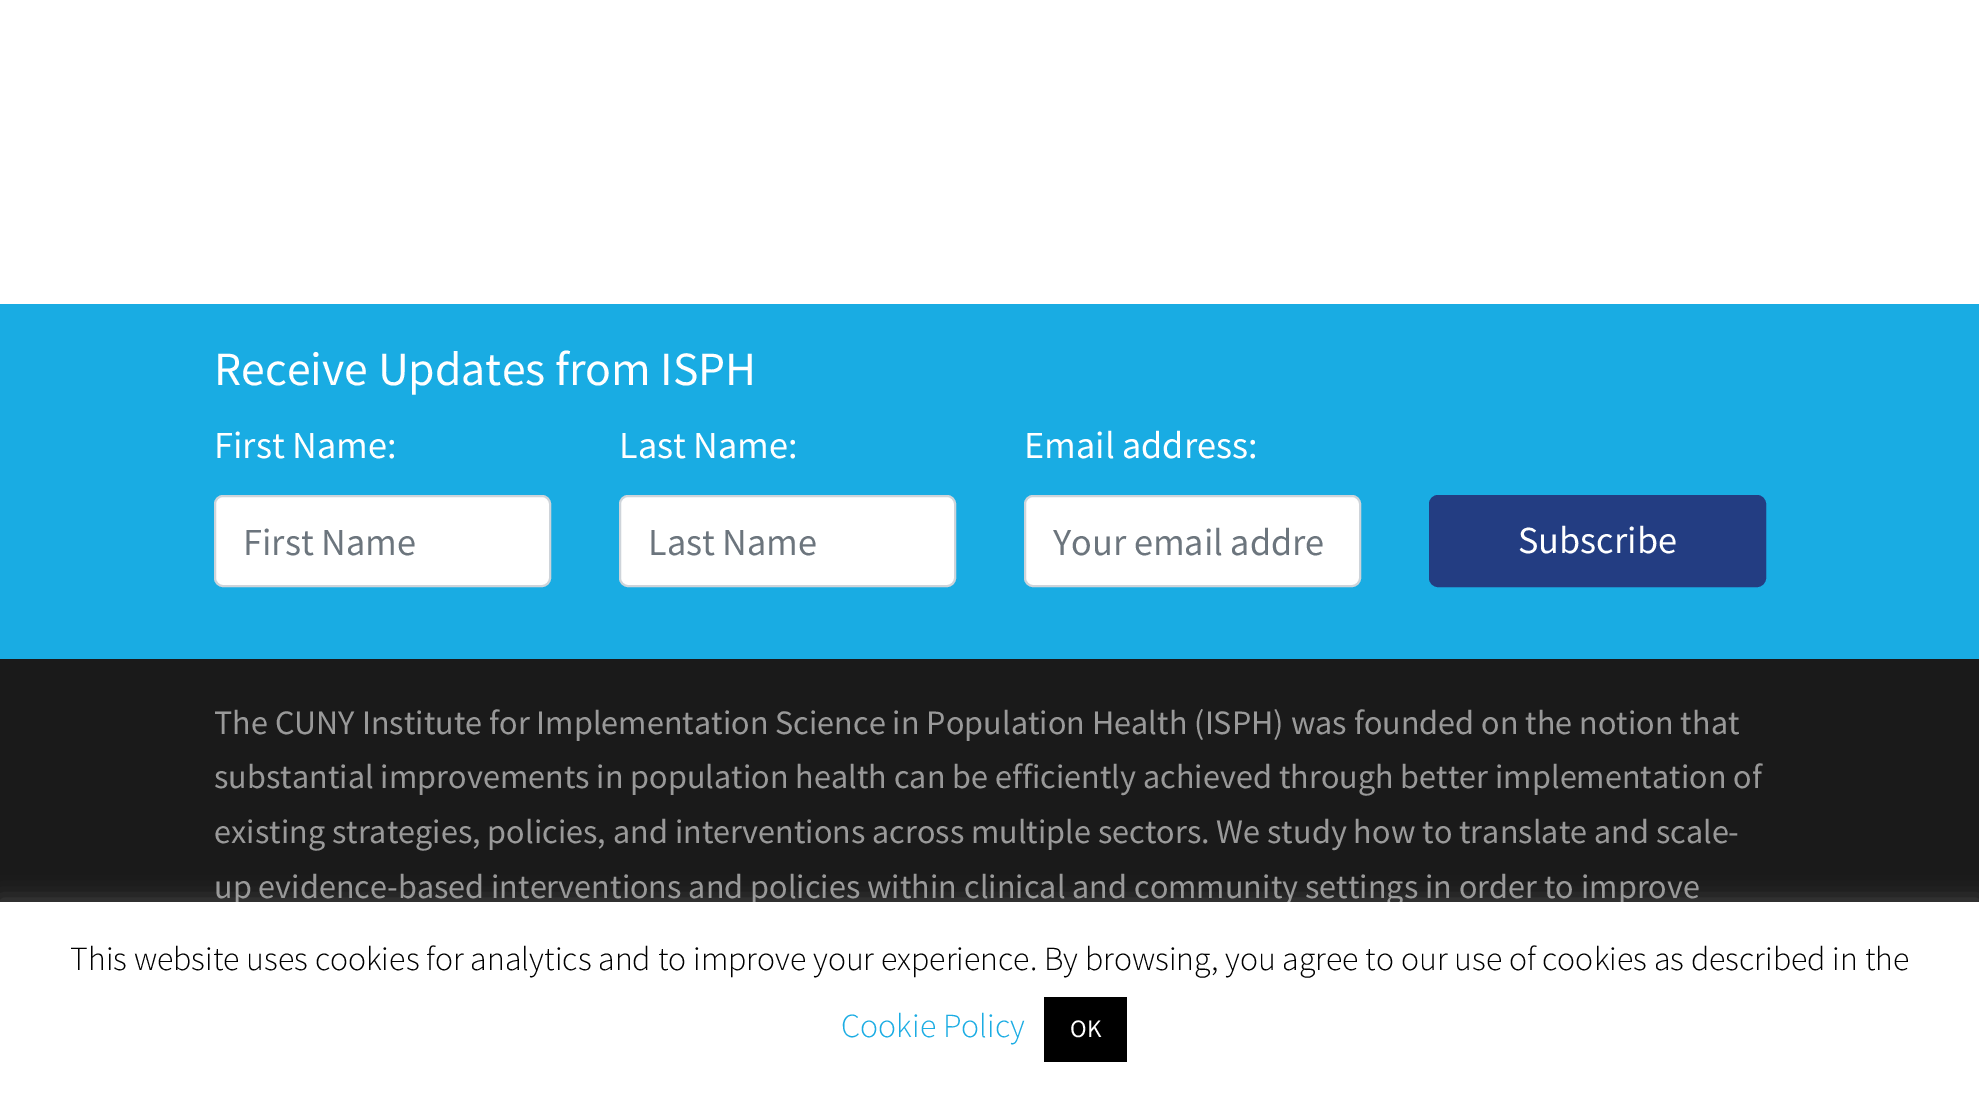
%!PS-Adobe-3.0
%%BoundingBox: 0 0 1979 1100
%%LanguageLevel: 3
%%Pages: 1
%%EndComments
%%BeginProlog
/setalpha { dup .setfillconstantalpha .setstrokeconstantalpha } def
/rrect { 5 dict begin { /r /h /w /y /x } { exch def } forall
  x r add y moveto x w add y 2 copy h add r arct x w add y h add x 1 index r arct
  x y h add x y r arct x y 2 copy exch w add exch r arct closepath end } def
/softshadow { 12 dict begin { /a /b /q /h /w /y /x } { exch def } forall gsave /was 0 def
  9 -2 -9 { dup b mul 4 div /e exch def 1 sub .425 mul 2.718 exch exp 1 add a .99 .min exch div /now exch def
    1 1 now sub 1 was sub div sub setalpha /was now def
    w h .min e 2 mul add 0 gt { x e sub y e sub w e 2 mul add h e 2 mul add
      q e add b .6 mul add w h .min 2 div e add .min 0 .max rrect fill } if } for grestore end } def
%%EndProlog
%%BeginSetup
<< /PageSize [1979 1100] /PageUsesTransparency true >> setpagedevice
%%EndSetup
%%Page: 1 1
0 .pushpdf14devicefilter
0 1100 translate 1 -1 scale
4 setmiterlimit
1 setgray
0 0 1979 1100 rectfill
0.098 0.675 0.89 setrgbcolor
0 304 1979 355 rectfill
1 setgray
215 496 335 90 8 rrect gsave fill grestore
0.808 0.831 0.855 setrgbcolor
2 setlinewidth
stroke
1 setgray
620 496 335 90 8 rrect gsave fill grestore
0.808 0.831 0.855 setrgbcolor
stroke
1 setgray
1025 496 335 90 8 rrect gsave fill grestore
0.808 0.831 0.855 setrgbcolor
stroke
0.137 0.239 0.51 setrgbcolor
1430 496 335 90 8 rrect gsave fill grestore
stroke
0.102 setgray
0 659 1979 243 rectfill
0.675 0.671 0.671 setrgbcolor
0 900 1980 198 0 11 0.3 softshadow
/SourceSansPro-Regular [47.75 0 0 -47.75 0 0] selectfont
1 setgray
214 385 moveto (Receive Updates from ISPH) show
/SourceSansPro-Regular [38.25 0 0 -38.25 0 0] selectfont
214 458 moveto (First Name:) show
0.424 0.459 0.49 setrgbcolor
243 555 moveto (First Name) show
1 setgray
619 458 moveto (Last Name:) show
0.424 0.459 0.49 setrgbcolor
648 555 moveto (Last Name) show
1 setgray
1024 458 moveto (Email address:) show
0.424 0.459 0.49 setrgbcolor
1053 555 moveto (Your email addre) show
1 setgray
1518 553 moveto (Subscribe) show
/SourceSansPro-Regular [34.2 0 0 -34.2 0 0] selectfont
0.6 setgray
214 734 moveto (The CUNY Institute for Implementation Science in Population Health \(ISPH\) was founded on the notion that) show
214 788 moveto (substantial improvements in population health can be efficiently achieved through better implementation of) show
214 843 moveto (existing strategies, policies, and interventions across multiple sectors. We study how to translate and scale-) show
214 898 moveto (up evidence-based interventions and policies within clinical and community settings in order to improve) show
1 setgray
0 902 1979 198 rectfill
/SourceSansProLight-Light [33.75 0 0 -33.75 0 0] selectfont
0 setgray
70 970 moveto (This website uses cookies for analytics and to improve your experience. By browsing, you agree to our use of cookies as described in the) show
0.106 0.675 0.89 setrgbcolor
841 1037 moveto (Cookie Policy) show
0 setgray
1044 997 83 65 rectfill
/SourceSansPro-Regular [25 0 0 -25 0 0] selectfont
1 setgray
1070 1037 moveto (OK) show
.poppdf14devicefilter showpage
%%EOF
